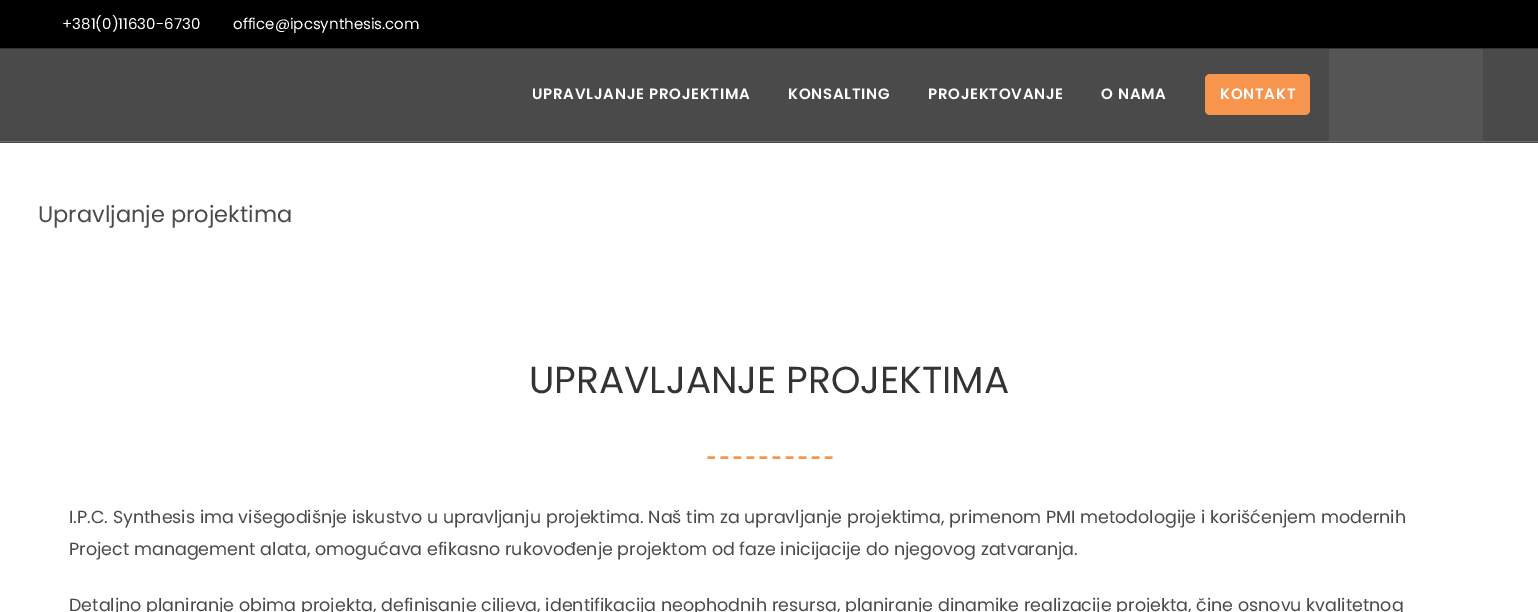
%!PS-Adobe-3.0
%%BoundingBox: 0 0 1538 612
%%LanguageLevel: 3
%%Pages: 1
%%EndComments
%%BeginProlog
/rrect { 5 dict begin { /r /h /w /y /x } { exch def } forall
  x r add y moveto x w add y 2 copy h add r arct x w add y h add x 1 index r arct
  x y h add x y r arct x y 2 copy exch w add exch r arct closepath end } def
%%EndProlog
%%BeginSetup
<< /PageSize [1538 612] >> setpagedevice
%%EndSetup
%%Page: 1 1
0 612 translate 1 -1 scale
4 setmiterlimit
1 setgray
0 0 1538 612 rectfill
0 setgray
0 0 1538 48 rectfill
0.2 setgray
0 48 1538 1 rectfill
0.29 setgray
0 49 1538 94 rectfill
0.431 setgray
0 141 1538 1 rectfill
0.969 0.584 0.31 setrgbcolor
1205 74 105 41 5 rrect fill
0.333 setgray
1329 49 154 92 rectfill
0.969 0.584 0.31 setrgbcolor
2.5 setlinewidth
[7.5 5.55] 0 setdash
newpath 707.5 457.5 moveto 832.5 457.5 lineto stroke
/Poppins-Regular [15 0 0 -15 0 0] selectfont
1 setgray
62 29 moveto (+381\(0\)11630-6730) show
233 29 moveto (office@ipcsynthesis.com) show
/Poppins-SemiBold [15 0 0 -15 0 0] selectfont
532 99 moveto 0.75 0 (UPRAVLJANJE PROJEKTIMA) ashow
788 99 moveto 0.75 0 (KONSALTING) ashow
928 99 moveto 0.75 0 (PROJEKTOVANJE) ashow
1101 99 moveto 0.75 0 (O NAMA) ashow
1220 99 moveto 0.75 0 (KONTAKT) ashow
/Poppins-Regular [22.5 0 0 -22.5 0 0] selectfont
0.29 setgray
38 222 moveto (Upravljanje projektima) show
/Poppins-Regular [37.5 0 0 -37.5 0 0] selectfont
0.2 setgray
529 393 moveto (UPRAVLJANJE PROJEKTIMA) show
/Poppins-Regular [17.5 0 0 -17.5 0 0] selectfont
0.29 setgray
69 523 moveto (I.P.C. Synthesis ima višegodišnje iskustvo u upravljanju projektima. Naš tim za upravljanje projektima, primenom PMI metodologije i korišćenjem modernih) show
69 555 moveto (Project management alata, omogućava efikasno rukovođenje projektom od faze inicijacije do njegovog zatvaranja.) show
69 611 moveto (Detaljno planiranje obima projekta, definisanje ciljeva, identifikacija neophodnih resursa, planiranje dinamike realizacije projekta, čine osnovu kvalitetnog) show
showpage
%%EOF
